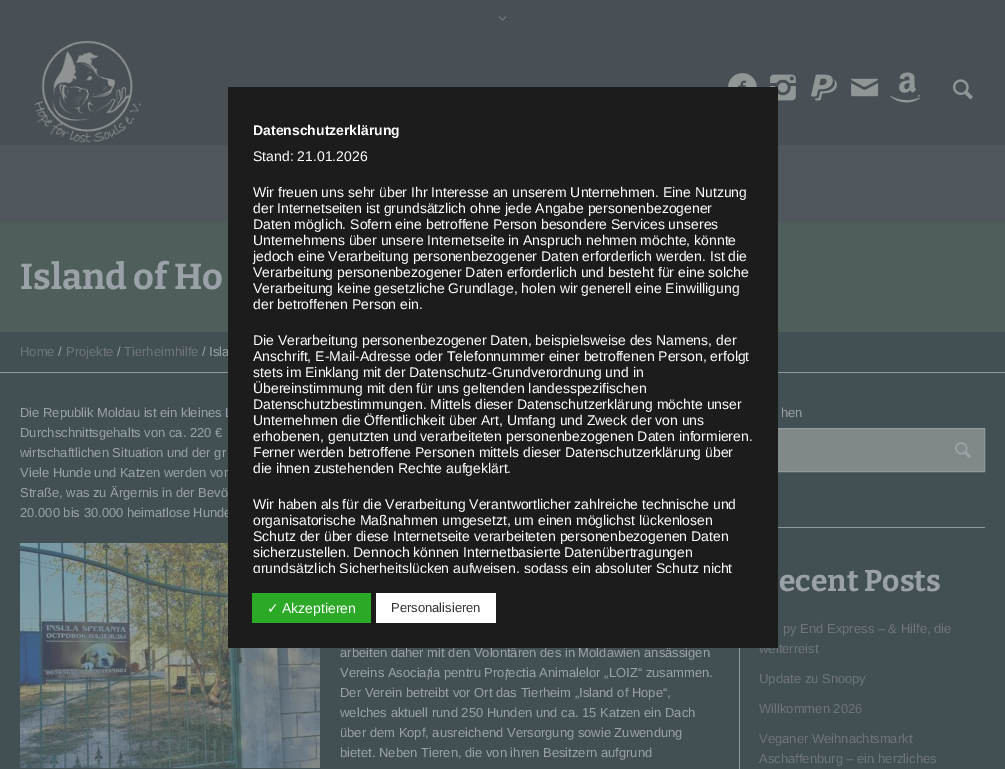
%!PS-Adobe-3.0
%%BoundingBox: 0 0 1005 769
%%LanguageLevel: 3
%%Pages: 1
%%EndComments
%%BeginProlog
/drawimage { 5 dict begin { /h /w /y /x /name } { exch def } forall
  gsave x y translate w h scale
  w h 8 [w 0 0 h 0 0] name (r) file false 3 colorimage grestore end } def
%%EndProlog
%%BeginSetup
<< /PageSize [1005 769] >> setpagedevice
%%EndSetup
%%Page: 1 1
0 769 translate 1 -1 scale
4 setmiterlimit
0.31 0.369 0.357 setrgbcolor
0 0 1005 769 rectfill
0.282 0.314 0.337 setrgbcolor
0 0 1005 35 rectfill
0.42 0.451 0.471 setrgbcolor
502 19 1 2 rectfill
505 16 1 2 rectfill
499 16 1 2 rectfill
504 17 1 2 rectfill
500 17 1 2 rectfill
503 18 1 2 rectfill
501 18 1 2 rectfill
0.282 0.314 0.333 setrgbcolor
0 35 1005 110 rectfill
(images/1.raw) 34 41 107 102 drawimage
(images/2.raw) 728 73 29 14 drawimage
(images/3.raw) 770 74 26 27 drawimage
(images/4.raw) 811 74 26 27 drawimage
(images/5.raw) 851 78 28 19 drawimage
(images/6.raw) 890 72 30 31 drawimage
(images/7.raw) 953 79 20 21 drawimage
0.31 0.341 0.361 setrgbcolor
0 145 1005 77 rectfill
0.259 0.314 0.329 setrgbcolor
0 332 1005 40 rectfill
0.569 0.6 0.616 setrgbcolor
0 372 1005 1 rectfill
0.259 0.314 0.329 setrgbcolor
0 373 1005 396 rectfill
(images/8.raw) 20 543 300 225 drawimage
0.569 0.6 0.616 setrgbcolor
739 648 1 121 rectfill
778 527 207 1 rectfill
0.506 0.533 0.533 setrgbcolor
778 429 206 42 rectfill
0.569 0.6 0.616 setrgbcolor
759.5 428.5 225 43 rectstroke
(images/9.raw) 955 442 16 16 drawimage
/Bitter-Thin [36 0 0 -36 0 0] selectfont
0.608 0.635 0.655 setrgbcolor
20 289 moveto (Island of Ho) show
/LiberationSans-Regular [13 0 0 -13 0 0] selectfont
0.435 0.459 0.471 setrgbcolor
20 356 moveto (Home) show
0.608 0.635 0.655 setrgbcolor
58 356 moveto (/) show
0.435 0.459 0.471 setrgbcolor
66 356 moveto (Projekte) show
0.608 0.635 0.655 setrgbcolor
117 356 moveto (/) show
0.435 0.459 0.471 setrgbcolor
124 356 moveto (Tierheimhilfe) show
0.608 0.635 0.655 setrgbcolor
202 356 moveto (/ Isla) show
20 417 moveto (Die Republik Moldau ist ein kleines L) show
20 437 moveto (Durchschnittsgehalts von ca. 220 €) show
20 457 moveto (wirtschaftlichen Situation und der gr) show
20 477 moveto (Viele Hunde und Katzen werden von) show
20 497 moveto (Straße, was zu Ärgernis in der Bevö) show
20 517 moveto (20.000 bis 30.000 heimatlose Hunde) show
340 657 moveto (arbeiten daher mit den Volontären des in Moldawien ansässigen) show
340 677 moveto (Vereins Asocia ia pentru Pro ectia Animalelor „LOIZ“ zusammen.) show
/LiberationSans-Italic [13 0 0 -13 0 0] selectfont
427 677 moveto (ț) show
505 677 moveto (ț) show
/LiberationSans-Regular [13 0 0 -13 0 0] selectfont
340 697 moveto (Der Verein betreibt vor Ort das Tierheim „Island of Hope“,) show
340 717 moveto (welches aktuell rund 250 Hunden und ca. 15 Katzen ein Dach) show
340 737 moveto (über dem Kopf, ausreichend Versorgung sowie Zuwendung) show
340 757 moveto (bietet. Neben Tieren, die von ihren Besitzern aufgrund) show
781 417 moveto (hen) show
/Bitter-Thin [30 0 0 -30 0 0] selectfont
779 591 moveto (ecent Posts) show
/LiberationSans-Regular [13 0 0 -13 0 0] selectfont
0.435 0.459 0.471 setrgbcolor
783 633 moveto (py End Express – & Hilfe, die) show
759 653 moveto (weiterreist) show
0.114 0.11 0.11 setrgbcolor
228 87 550 561 rectfill
1 setgray
376 593 120 30 rectfill
0.2 setgray
391 612 moveto (Personalisieren) show
0.173 0.667 0.153 setrgbcolor
252 593 119 30 rectfill
/LiberationSans-Regular [14 0 0 -14 0 0] selectfont
1 setgray
282 613 moveto (Akzeptieren) show
/DejaVuSans-Regular [14 0 0 -14 0 0] selectfont
267 613 moveto (✓) show
gsave
253 112 525 461 rectclip
/LiberationSans-Regular [14 0 0 -14 0 0] selectfont
253 573 moveto (grundsätzlich Sicherheitslücken aufweisen, sodass ein absoluter Schutz nicht) show
grestore
/LiberationSans-Regular [14 0 0 -14 0 0] selectfont
253 557 moveto (sicherzustellen. Dennoch können Internetbasierte Datenübertragungen) show
253 541 moveto (Schutz der über diese Internetseite verarbeiteten personenbezogenen Daten) show
253 525 moveto (organisatorische Maßnahmen umgesetzt, um einen möglichst lückenlosen) show
253 509 moveto (Wir haben als für die Verarbeitung Verantwortlicher zahlreiche technische und) show
253 473 moveto (die ihnen zustehenden Rechte aufgeklärt.) show
253 457 moveto (Ferner werden betroffene Personen mittels dieser Datenschutzerklärung über) show
253 441 moveto (erhobenen, genutzten und verarbeiteten personenbezogenen Daten informieren.) show
253 425 moveto (Unternehmen die Öffentlichkeit über Art, Umfang und Zweck der von uns) show
253 409 moveto (Datenschutzbestimmungen. Mittels dieser Datenschutzerklärung möchte unser) show
253 393 moveto (Übereinstimmung mit den für uns geltenden landesspezifischen) show
253 377 moveto (stets im Einklang mit der Datenschutz-Grundverordnung und in) show
253 361 moveto (Anschrift, E-Mail-Adresse oder Telefonnummer einer betroffenen Person, erfolgt) show
253 345 moveto (Die Verarbeitung personenbezogener Daten, beispielsweise des Namens, der) show
253 309 moveto (der betroffenen Person ein.) show
253 293 moveto (Verarbeitung keine gesetzliche Grundlage, holen wir generell eine Einwilligung) show
253 277 moveto (Verarbeitung personenbezogener Daten erforderlich und besteht für eine solche) show
253 261 moveto (jedoch eine Verarbeitung personenbezogener Daten erforderlich werden. Ist die) show
253 245 moveto (Unternehmens über unsere Internetseite in Anspruch nehmen möchte, könnte) show
253 229 moveto (Daten möglich. Sofern eine betroffene Person besondere Services unseres) show
253 213 moveto (der Internetseiten ist grundsätzlich ohne jede Angabe personenbezogener) show
253 197 moveto (Wir freuen uns sehr über Ihr Interesse an unserem Unternehmen. Eine Nutzung) show
253 161 moveto (Stand: 21.01.2026) show
/LiberationSans-Bold [14 0 0 -14 0 0] selectfont
253 135 moveto (Datenschutzerklärung) show
/LiberationSans-Regular [13 0 0 -13 0 0] selectfont
0.435 0.459 0.471 setrgbcolor
759 683 moveto (Update zu Snoopy) show
759 713 moveto (Willkommen 2026) show
759 743 moveto (Veganer Weihnachtsmarkt) show
759 763 moveto (Aschaffenburg – ein herzliches) show
showpage
%%EOF
